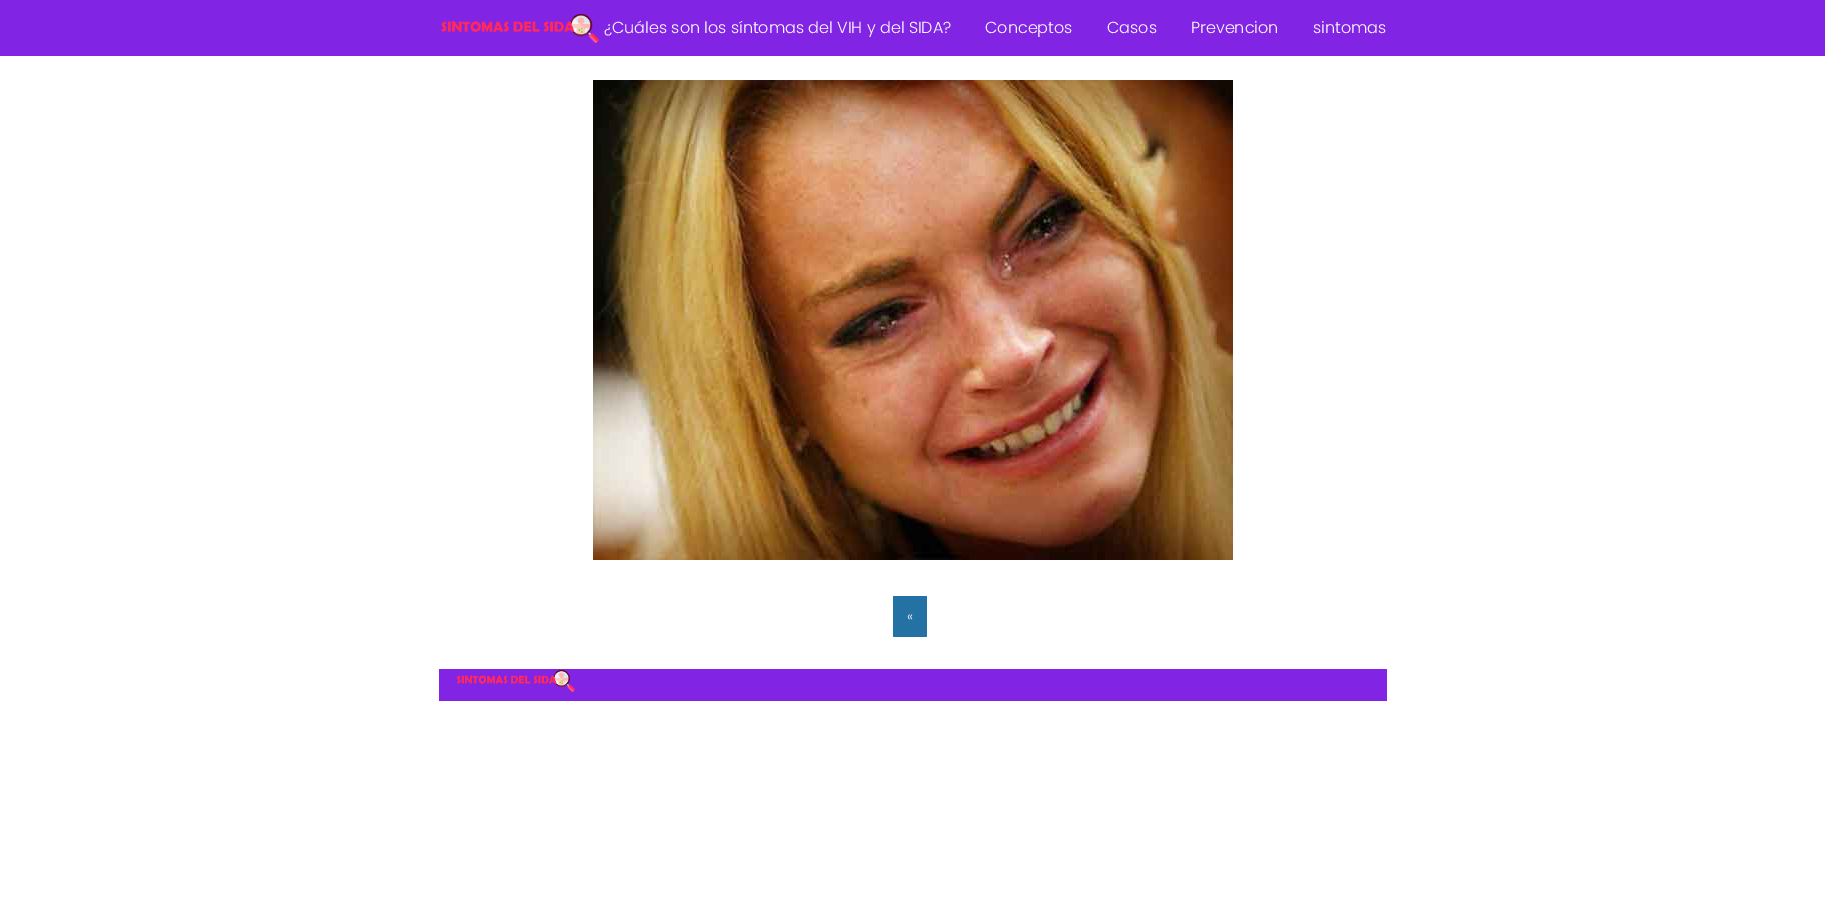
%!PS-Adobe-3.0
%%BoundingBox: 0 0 1825 899
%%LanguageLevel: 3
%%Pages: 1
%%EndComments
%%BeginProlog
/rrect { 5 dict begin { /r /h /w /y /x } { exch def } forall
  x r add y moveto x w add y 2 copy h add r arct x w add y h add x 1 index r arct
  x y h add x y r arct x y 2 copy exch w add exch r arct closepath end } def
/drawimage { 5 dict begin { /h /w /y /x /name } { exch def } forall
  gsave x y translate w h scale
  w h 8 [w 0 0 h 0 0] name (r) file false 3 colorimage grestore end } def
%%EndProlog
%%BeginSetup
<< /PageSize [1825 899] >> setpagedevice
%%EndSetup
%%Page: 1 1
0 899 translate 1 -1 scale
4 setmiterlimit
1 setgray
0 0 1825 899 rectfill
0.51 0.141 0.89 setrgbcolor
0 0 1825 56 rectfill
(images/1.raw) 441 14 158 29 drawimage
(images/2.raw) 593 80 640 480 drawimage
0.141 0.443 0.639 setrgbcolor
893 596 34 41 1 rrect fill
0.51 0.141 0.89 setrgbcolor
439 669 948 32 rectfill
(images/3.raw) 456 670 119 22 drawimage
/Poppins-Light [16 0 0 -16 0 0] selectfont
1 setgray
604 33 moveto (¿Cuáles son los síntomas del VIH y del SIDA?) show
985 33 moveto (Conceptos) show
1107 33 moveto (Casos) show
1191 33 moveto (Prevencion) show
1313 33 moveto (sintomas) show
/Poppins-Light [14 0 0 -14 0 0] selectfont
907 621 moveto («) show
showpage
%%EOF
